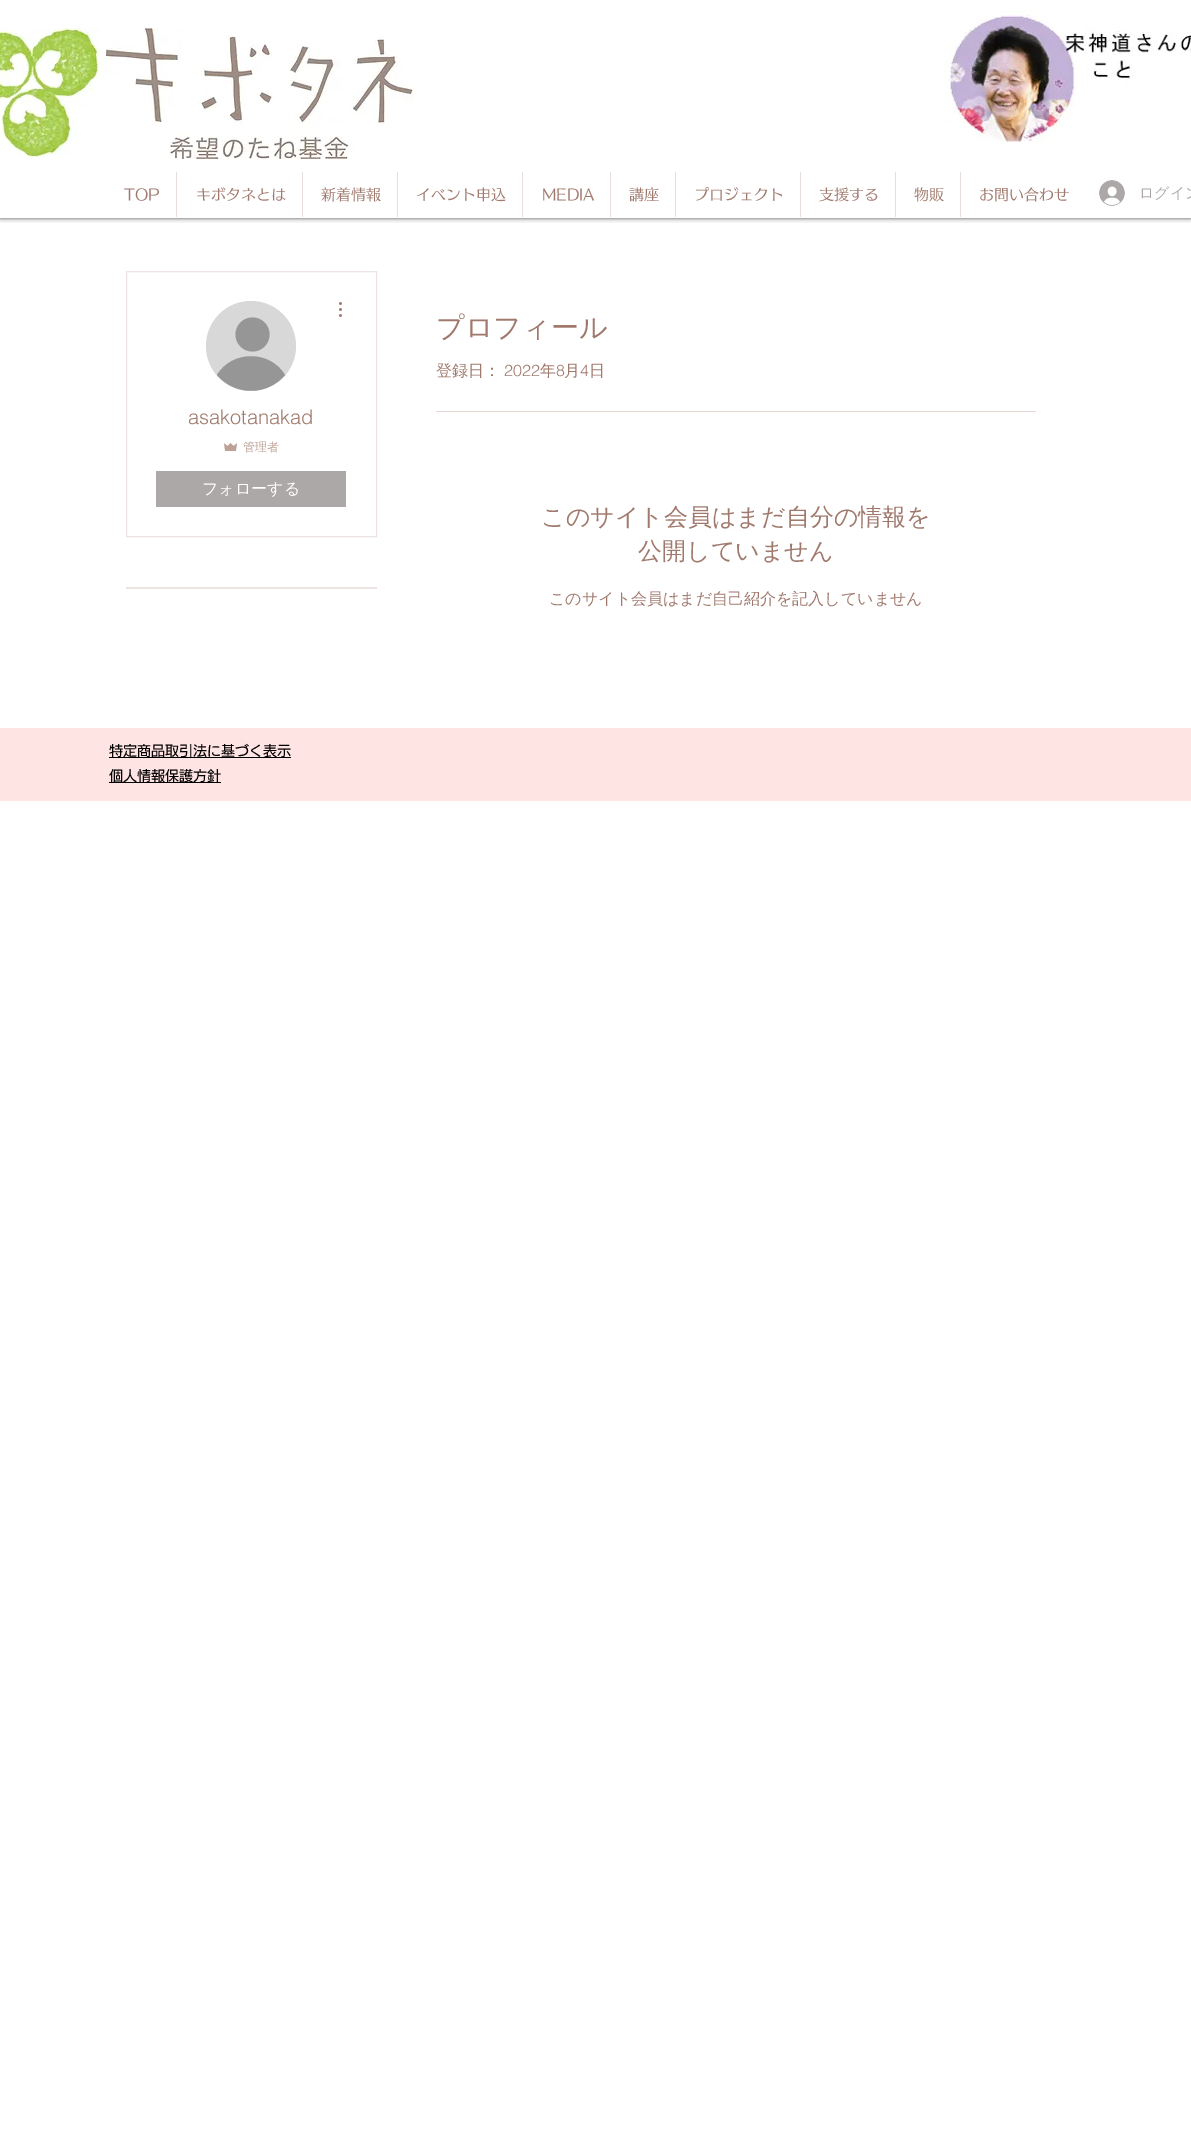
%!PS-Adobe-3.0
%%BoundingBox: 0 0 1191 2146
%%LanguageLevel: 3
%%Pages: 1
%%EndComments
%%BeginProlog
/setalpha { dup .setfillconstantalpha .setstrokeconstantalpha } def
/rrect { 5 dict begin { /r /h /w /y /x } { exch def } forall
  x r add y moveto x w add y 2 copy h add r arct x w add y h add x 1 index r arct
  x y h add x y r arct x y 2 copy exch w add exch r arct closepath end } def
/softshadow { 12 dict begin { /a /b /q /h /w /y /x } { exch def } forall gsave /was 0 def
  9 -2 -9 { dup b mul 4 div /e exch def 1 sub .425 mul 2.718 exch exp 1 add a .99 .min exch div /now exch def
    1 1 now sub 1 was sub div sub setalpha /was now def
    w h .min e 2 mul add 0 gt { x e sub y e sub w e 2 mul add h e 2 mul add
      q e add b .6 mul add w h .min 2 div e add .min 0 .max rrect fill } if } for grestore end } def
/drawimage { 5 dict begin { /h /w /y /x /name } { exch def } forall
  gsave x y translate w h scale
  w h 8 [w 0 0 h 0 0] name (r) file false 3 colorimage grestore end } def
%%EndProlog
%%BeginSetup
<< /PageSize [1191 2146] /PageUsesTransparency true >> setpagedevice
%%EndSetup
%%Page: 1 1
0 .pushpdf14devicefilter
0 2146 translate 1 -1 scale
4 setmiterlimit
1 setgray
0 0 1191 2146 rectfill
gsave
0 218 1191 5 rectclip
0 setgray
0 0 1191 218 0 2.5 0.7 softshadow
grestore
(images/1.raw) 0 28 414 131 drawimage
(images/2.raw) 945 11 246 131 drawimage
0.906 0.871 0.859 setrgbcolor
176 172 1 45 rectfill
302 172 1 45 rectfill
397 172 1 45 rectfill
522 172 1 45 rectfill
610 172 1 45 rectfill
675 172 1 45 rectfill
800 172 1 45 rectfill
895 172 1 45 rectfill
960 172 1 45 rectfill
(images/3.raw) 1099 180 26 26 drawimage
0.925 0.894 0.886 setrgbcolor
126.5 271.5 250 265 rectstroke
0.847 setgray
newpath 251 346 45 0 360 arc closepath fill
0.588 setgray
newpath 252.5 334.5 17 0 360 arc closepath fill
newpath 285 375 moveto 267 396 235 396 217 375 curveto 232 350 270 350 285 375 curveto closepath fill
(images/4.raw) 339 302 3 15 drawimage
(images/5.raw) 224 443 13 8 drawimage
0.678 0.659 0.659 setrgbcolor
156 471 190 36 rectfill
0.925 0.894 0.886 setrgbcolor
126 587 251 2 rectfill
0.89 0.843 0.827 setrgbcolor
436 411 600 1 rectfill
0.996 0.894 0.886 setrgbcolor
0 728 1191 73 rectfill
0 setgray
109 757 182 1 rectfill
109 782 112 1 rectfill
/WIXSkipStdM-Medium [15 0 0 -15 0 0] selectfont
0.627 0.475 0.427 setrgbcolor
124 200 moveto (TOP) show
196 200 moveto (キボタネとは) show
321 200 moveto (新着情報) show
416 200 moveto (イベント申込) show
542 200 moveto (MEDIA) show
629 200 moveto (講座) show
694 200 moveto (プロジェクト) show
819 200 moveto (支援する) show
914 200 moveto (物販) show
979 200 moveto (お問い合わせ) show
/WenQuanYiZenHei-Medium [15 0 0 -15 0 0] selectfont
0.678 0.659 0.659 setrgbcolor
1139 198 moveto (ログイン) show
/helvetica-Light [20 0 0 -20 0 0] selectfont
0.627 0.475 0.427 setrgbcolor
188 424 moveto (asakotanakad) show
/WenQuanYiZenHei-Medium [12 0 0 -12 0 0] selectfont
0.741 0.631 0.6 setrgbcolor
243 451 moveto (管理者) show
/WenQuanYiZenHei-Medium [16 0 0 -16 0 0] selectfont
1 setgray
202 494 moveto (フォローする) show
/WenQuanYiZenHei-Medium [28 0 0 -28 0 0] selectfont
0.627 0.475 0.427 setrgbcolor
436 337 moveto (プロフィール) show
/WenQuanYiZenHei-Medium [16 0 0 -16 0 0] selectfont
436 376 moveto (登録日：) show
/helvetica-Light [16 0 0 -16 0 0] selectfont
504 376 moveto (2022) show
/WenQuanYiZenHei-Medium [16 0 0 -16 0 0] selectfont
540 376 moveto (年) show
/helvetica-Light [16 0 0 -16 0 0] selectfont
556 376 moveto (8) show
/WenQuanYiZenHei-Medium [16 0 0 -16 0 0] selectfont
564 376 moveto (月) show
/helvetica-Light [16 0 0 -16 0 0] selectfont
580 376 moveto (4) show
/WenQuanYiZenHei-Medium [16 0 0 -16 0 0] selectfont
589 376 moveto (日) show
/WenQuanYiZenHei-Medium [24 0 0 -24 0 0] selectfont
541 525 moveto (このサイト会員はまだ自分の情報を) show
638 559 moveto (公開していません) show
/WenQuanYiZenHei-Medium [16 0 0 -16 0 0] selectfont
549 604 moveto (このサイト会員はまだ自己紹介を記入していません) show
/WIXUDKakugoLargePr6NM-Medium [14 0 0 -14 0 0] selectfont
0 setgray
109 756 moveto (特定商品取引法に基づく表示) show
109 781 moveto (個人情報保護方針) show
.poppdf14devicefilter showpage
%%EOF
